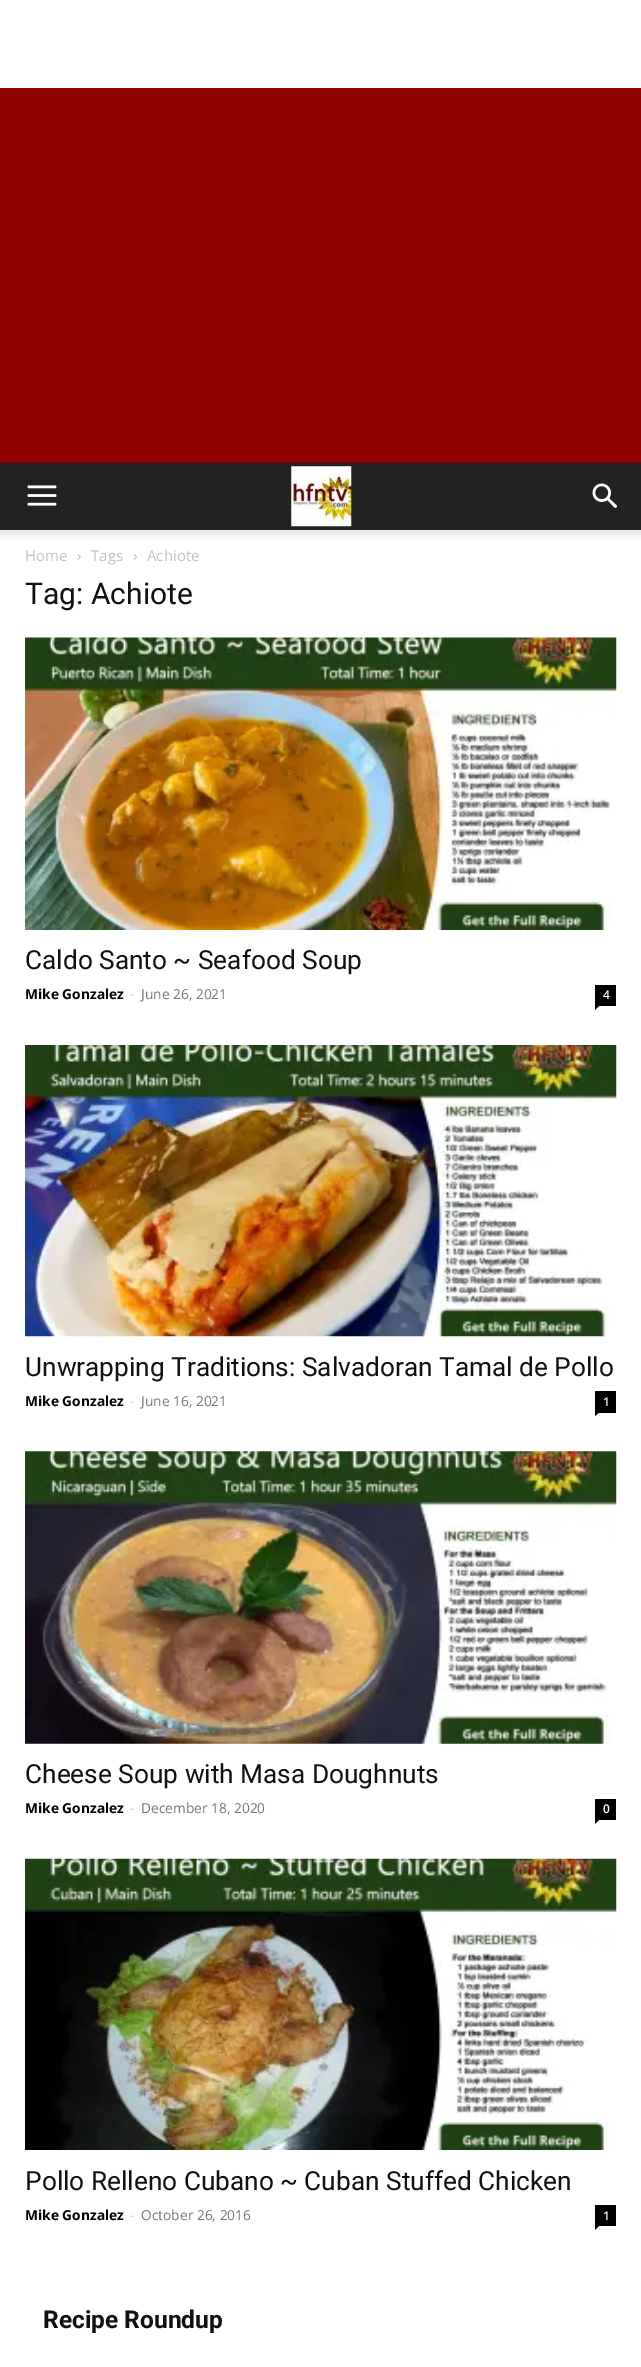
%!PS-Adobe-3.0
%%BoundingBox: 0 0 641 2367
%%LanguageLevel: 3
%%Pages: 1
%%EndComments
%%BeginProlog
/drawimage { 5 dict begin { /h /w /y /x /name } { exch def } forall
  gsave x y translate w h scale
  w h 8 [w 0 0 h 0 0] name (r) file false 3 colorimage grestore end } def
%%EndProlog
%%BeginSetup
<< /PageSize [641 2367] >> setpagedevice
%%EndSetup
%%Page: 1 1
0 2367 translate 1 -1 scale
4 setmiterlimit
0.569 0 0 setrgbcolor
0 0 641 2367 rectfill
1 setgray
0 0 641 88 rectfill
0.133 setgray
0 463 641 67 rectfill
(images/1.raw) 27 485 30 21 drawimage
(images/2.raw) 291 466 61 61 drawimage
(images/3.raw) 592 483 25 25 drawimage
1 setgray
0 530 641 1837 rectfill
(images/4.raw) 0 530 641 11 drawimage
(images/5.raw) 77 554 4 6 drawimage
(images/6.raw) 133 554 4 6 drawimage
(images/7.raw) 25 637 592 293 drawimage
0 setgray
595 985 21 21 rectfill
newpath 595 1006 moveto 599 1006 lineto 595 1010 lineto closepath fill
(images/8.raw) 25 1045 592 292 drawimage
595 1391 21 22 rectfill
newpath 595 1412.5 moveto 599 1412.5 lineto 595 1416 lineto closepath fill
(images/9.raw) 25 1451 592 293 drawimage
595 1799 21 21 rectfill
newpath 595 1820 moveto 599 1820 lineto 595 1824 lineto closepath fill
(images/10.raw) 25 1858 592 292 drawimage
595 2205 21 21 rectfill
newpath 595 2226 moveto 599 2226 lineto 595 2230 lineto closepath fill
/OpenSans-Regular [15 0 0 -15 0 0] selectfont
0.765 setgray
25 561 moveto (Home) show
91 561 moveto (Tags) show
147 561 moveto (Achiote) show
/Roboto-Regular [30 0 0 -30 0 0] selectfont
0.067 setgray
25 604 moveto (Tag: Achiote) show
/Roboto-Regular [26.25 0 0 -26.25 0 0] selectfont
25 969 moveto (Caldo Santo ~ Seafood Soup) show
/OpenSans-Bold [13.75 0 0 -13.75 0 0] selectfont
0 setgray
25 999 moveto (Mike Gonzalez) show
/OpenSans-Regular [13.75 0 0 -13.75 0 0] selectfont
0.8 setgray
130 999 moveto (-) show
0.463 setgray
141 999 moveto (June 26, 2021) show
/OpenSans-SemiBold [12 0 0 -12 0 0] selectfont
1 setgray
603 999 moveto (4) show
/Roboto-Regular [26.25 0 0 -26.25 0 0] selectfont
0.067 setgray
25 1376 moveto (Unwrapping Traditions: Salvadoran Tamal de Pollo) show
/OpenSans-Bold [13.75 0 0 -13.75 0 0] selectfont
0 setgray
25 1406 moveto (Mike Gonzalez) show
/OpenSans-Regular [13.75 0 0 -13.75 0 0] selectfont
0.8 setgray
130 1406 moveto (-) show
0.463 setgray
141 1406 moveto (June 16, 2021) show
/OpenSans-SemiBold [12 0 0 -12 0 0] selectfont
1 setgray
603 1406 moveto (1) show
/Roboto-Regular [26.25 0 0 -26.25 0 0] selectfont
0.067 setgray
25 1783 moveto (Cheese Soup with Masa Doughnuts) show
/OpenSans-Bold [13.75 0 0 -13.75 0 0] selectfont
0 setgray
25 1813 moveto (Mike Gonzalez) show
/OpenSans-Regular [13.75 0 0 -13.75 0 0] selectfont
0.8 setgray
130 1813 moveto (-) show
0.463 setgray
141 1813 moveto (December 18, 2020) show
/OpenSans-SemiBold [12 0 0 -12 0 0] selectfont
1 setgray
603 1813 moveto (0) show
/Roboto-Regular [26.25 0 0 -26.25 0 0] selectfont
0.067 setgray
25 2190 moveto (Pollo Relleno Cubano ~ Cuban Stuffed Chicken) show
/OpenSans-Bold [13.75 0 0 -13.75 0 0] selectfont
0 setgray
25 2220 moveto (Mike Gonzalez) show
/OpenSans-Regular [13.75 0 0 -13.75 0 0] selectfont
0.8 setgray
130 2220 moveto (-) show
0.463 setgray
141 2220 moveto (October 26, 2016) show
/OpenSans-SemiBold [12 0 0 -12 0 0] selectfont
1 setgray
603 2220 moveto (1) show
/Roboto-Bold [24.5 0 0 -24.5 0 0] selectfont
0.067 setgray
43 2328 moveto (Recipe Roundup) show
showpage
%%EOF
